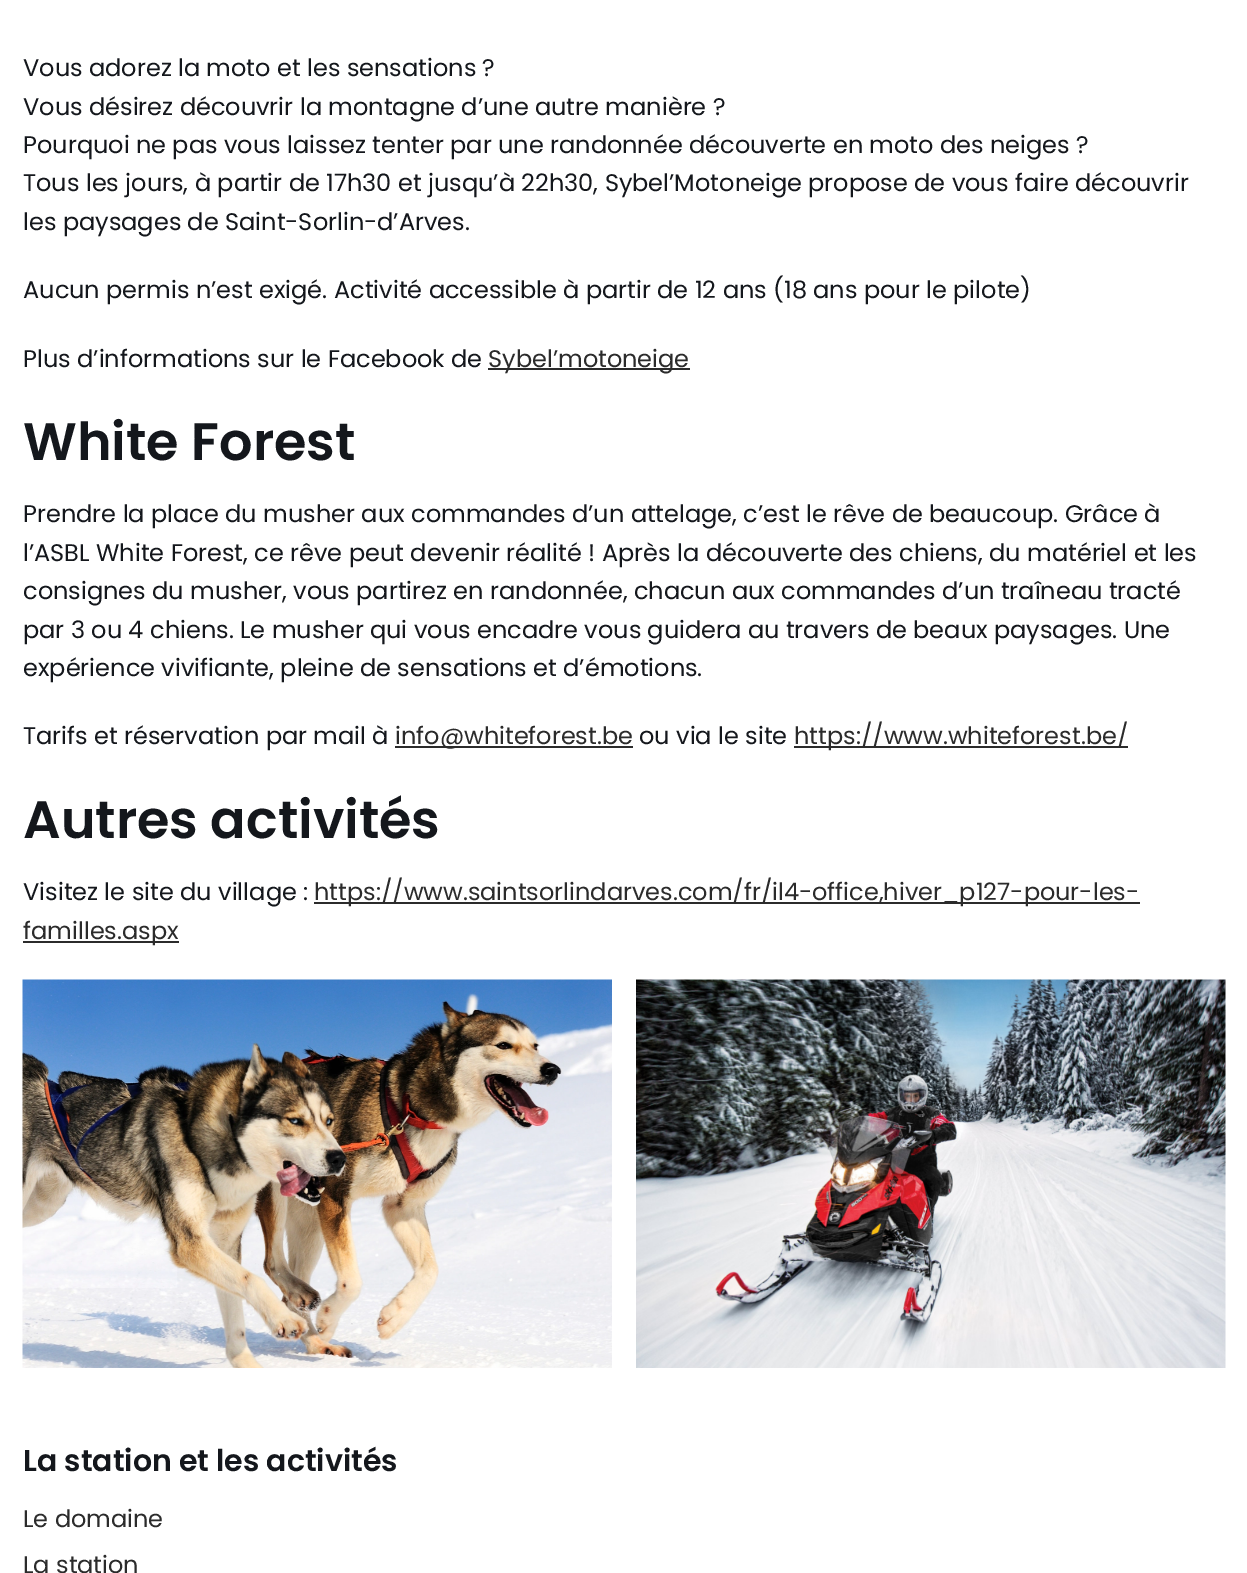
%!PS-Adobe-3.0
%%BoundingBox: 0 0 1247 1573
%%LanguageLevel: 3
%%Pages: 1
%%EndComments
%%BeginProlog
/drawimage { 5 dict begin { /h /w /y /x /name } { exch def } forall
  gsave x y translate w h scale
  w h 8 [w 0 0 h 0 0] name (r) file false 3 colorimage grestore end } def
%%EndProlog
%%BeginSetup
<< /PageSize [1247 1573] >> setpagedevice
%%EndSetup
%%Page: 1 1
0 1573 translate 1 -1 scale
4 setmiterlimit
1 setgray
0 0 1247 1573 rectfill
0.169 setgray
488 368 202 2 rectfill
395 746 238 2 rectfill
794 746 334 2 rectfill
314 902 826 2 rectfill
23 941 156 2 rectfill
(images/1.raw) 22 979 590 389 drawimage
(images/2.raw) 636 979 590 389 drawimage
/Poppins-Regular [24 0 0 -24 0 0] selectfont
0.078 0.09 0.11 setrgbcolor
23 76 moveto (Vous adorez la moto et les sensations ?) show
23 115 moveto (Vous désirez découvrir la montagne d’une autre manière ?) show
23 153 moveto (Pourquoi ne pas vous laissez tenter par une randonnée découverte en moto des neiges ?) show
23 191 moveto (Tous les jours, à partir de 17h30 et jusqu’à 22h30, Sybel’Motoneige propose de vous faire découvrir) show
23 230 moveto (les paysages de Saint-Sorlin-d’Arves.) show
23 298 moveto (Aucun permis n’est exigé. Activité accessible à partir de 12 ans \(18 ans pour le pilote\)) show
23 367 moveto (Plus d’informations sur le Facebook de) show
0.169 setgray
488 367 moveto (Sybel’motoneige) show
/Poppins-SemiBold [52.5 0 0 -52.5 0 0] selectfont
0.078 0.09 0.11 setrgbcolor
23 460 moveto (White Forest) show
/Poppins-Regular [24 0 0 -24 0 0] selectfont
23 522 moveto (Prendre la place du musher aux commandes d’un attelage, c’est le rêve de beaucoup. Grâce à) show
23 561 moveto (l’ASBL White Forest, ce rêve peut devenir réalité ! Après la découverte des chiens, du matériel et les) show
23 599 moveto (consignes du musher, vous partirez en randonnée, chacun aux commandes d’un traîneau tracté) show
23 638 moveto (par 3 ou 4 chiens. Le musher qui vous encadre vous guidera au travers de beaux paysages. Une) show
23 676 moveto (expérience vivifiante, pleine de sensations et d’émotions.) show
23 744 moveto (Tarifs et réservation par mail à) show
0.169 setgray
395 744 moveto (info@whiteforest.be) show
0.078 0.09 0.11 setrgbcolor
639 744 moveto (ou via le site) show
0.169 setgray
794 744 moveto (https://www.whiteforest.be/) show
/Poppins-SemiBold [52.5 0 0 -52.5 0 0] selectfont
0.078 0.09 0.11 setrgbcolor
23 838 moveto (Autres activités) show
/Poppins-Regular [24 0 0 -24 0 0] selectfont
23 900 moveto (Visitez le site du village :) show
0.169 setgray
314 900 moveto (https://www.saintsorlindarves.com/fr/il4-office,hiver_p127-pour-les-) show
23 939 moveto (familles.aspx) show
/Poppins-SemiBold [30 0 0 -30 0 0] selectfont
0.078 0.09 0.11 setrgbcolor
23 1471 moveto (La station et les activités) show
/Poppins-Regular [24 0 0 -24 0 0] selectfont
0.169 setgray
23 1527 moveto (Le domaine) show
23 1573 moveto (La station) show
showpage
%%EOF
